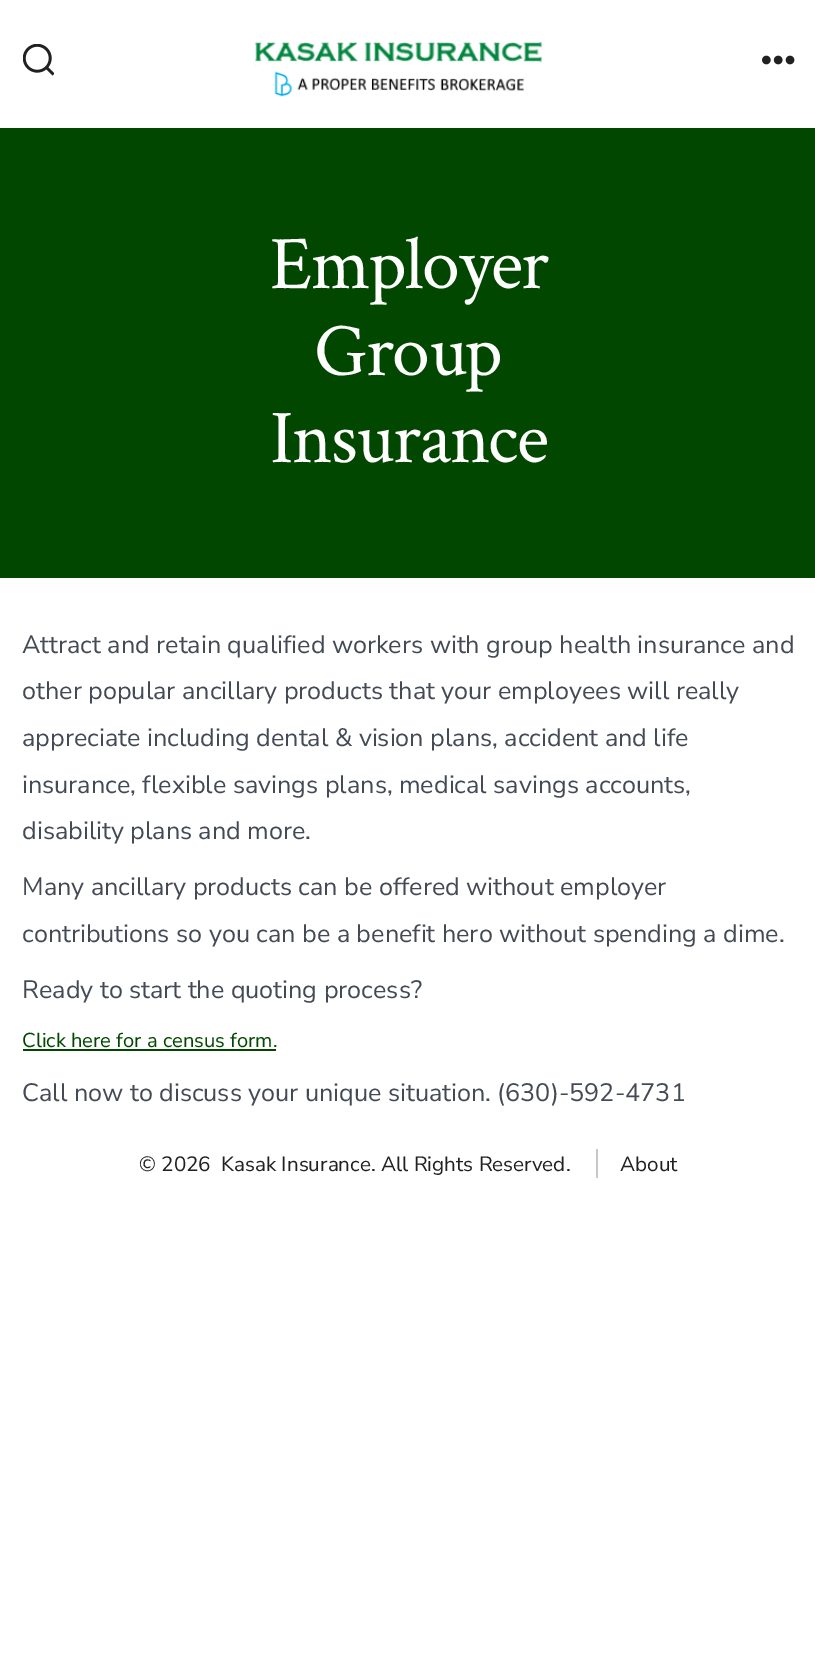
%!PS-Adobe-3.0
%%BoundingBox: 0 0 815 1658
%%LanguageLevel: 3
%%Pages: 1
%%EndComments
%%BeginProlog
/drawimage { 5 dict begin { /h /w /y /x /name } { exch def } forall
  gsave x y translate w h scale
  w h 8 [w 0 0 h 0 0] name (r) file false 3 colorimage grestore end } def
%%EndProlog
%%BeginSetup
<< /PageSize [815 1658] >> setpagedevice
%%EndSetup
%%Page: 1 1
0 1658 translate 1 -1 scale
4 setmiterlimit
1 setgray
0 0 815 1658 rectfill
(images/1.raw) 23 44 31 32 drawimage
(images/2.raw) 255 42 287 55 drawimage
(images/3.raw) 762 55 33 10 drawimage
0.004 0.278 0 setrgbcolor
0 128 815 450 rectfill
23 1049 253 2 rectfill
0.784 setgray
596 1149 2 29 rectfill
/CrimsonText-Regular [76 0 0 -76 0 0] selectfont
1 setgray
270 288 moveto -1.5 0 (Employer) ashow
314 375 moveto -1.5 0 (Group) ashow
270 462 moveto -1.5 0 (Insurance) ashow
/NunitoSans-Regular [25.2 0 0 -25.2 0 0] selectfont
0.263 0.29 0.337 setrgbcolor
22 653 moveto (Attract and retain qualified workers with group health insurance and) show
22 699 moveto (other popular ancillary products that your employees will really) show
22 746 moveto (appreciate including dental & vision plans, accident and life) show
22 793 moveto (insurance, flexible savings plans, medical savings accounts,) show
22 839 moveto (disability plans and more.) show
22 895 moveto (Many ancillary products can be offered without employer) show
22 942 moveto (contributions so you can be a benefit hero without spending a dime.) show
22 998 moveto (Ready to start the quoting process?) show
/NunitoSans-Regular [20.2 0 0 -20.2 0 0] selectfont
0.004 0.278 0 setrgbcolor
22 1047 moveto (Click here for a census form.) show
/NunitoSans-Regular [25.2 0 0 -25.2 0 0] selectfont
0.263 0.29 0.337 setrgbcolor
22 1101 moveto (Call now to discuss your unique situation. \(630\)-592-4731) show
/NunitoSans-Regular [20.7 0 0 -20.7 0 0] selectfont
0.129 setgray
139 1171 moveto (© 2026) show
221 1171 moveto (Kasak Insurance. All Rights Reserved.) show
620 1171 moveto (About) show
showpage
%%EOF
